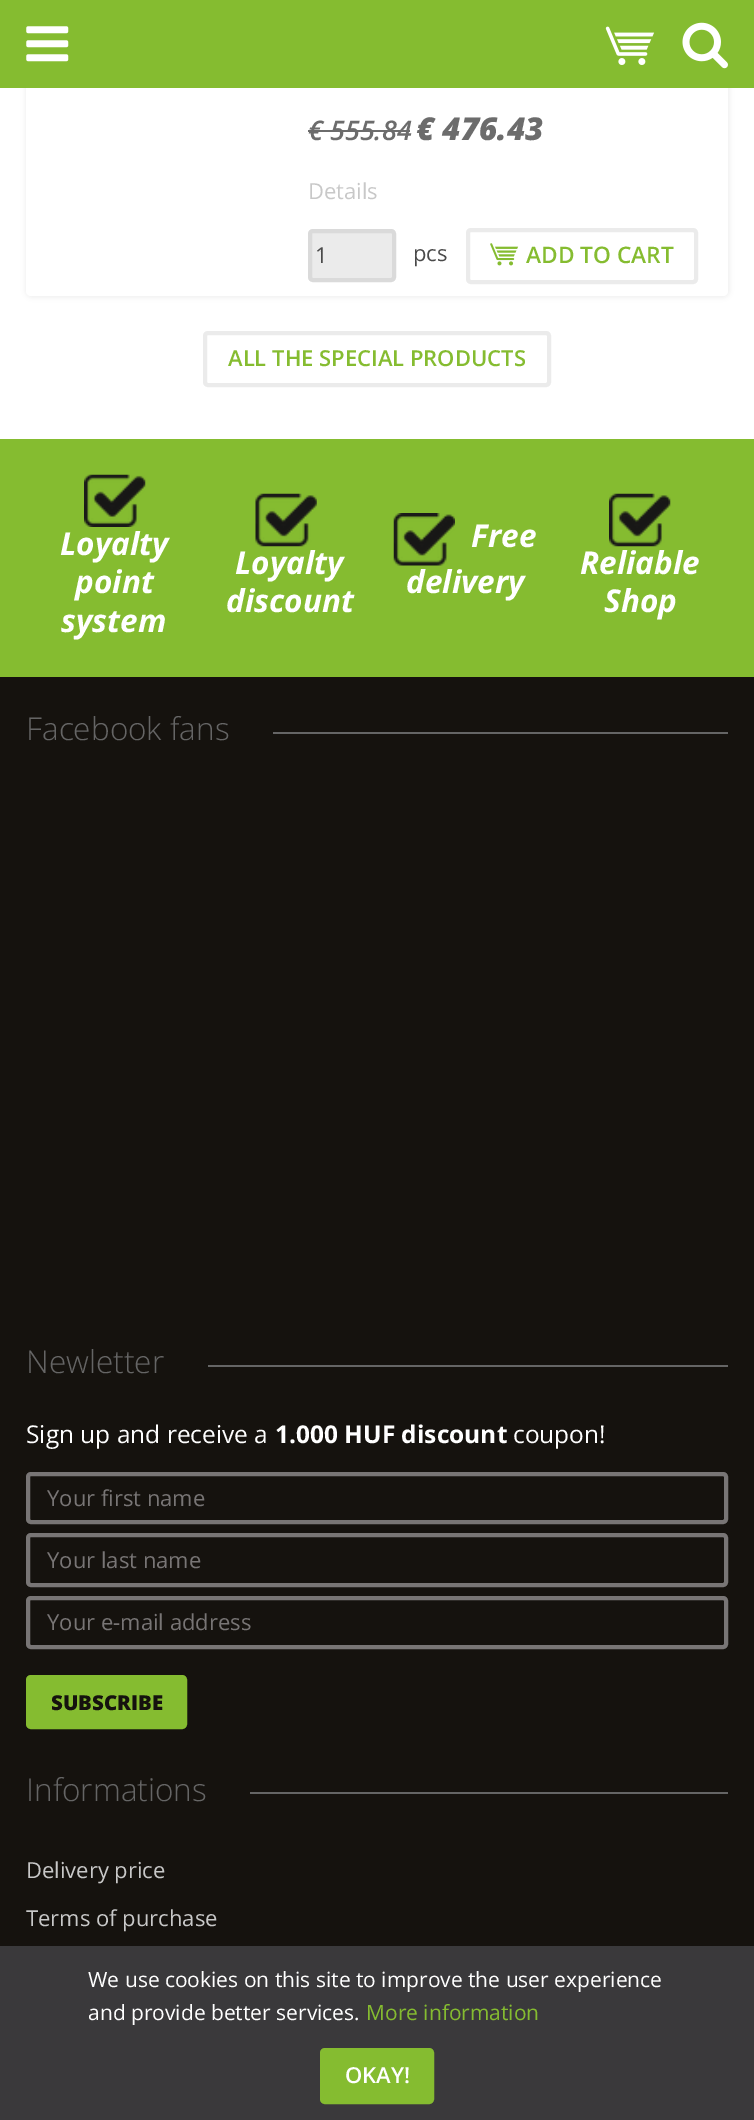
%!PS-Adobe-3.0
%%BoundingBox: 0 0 754 2120
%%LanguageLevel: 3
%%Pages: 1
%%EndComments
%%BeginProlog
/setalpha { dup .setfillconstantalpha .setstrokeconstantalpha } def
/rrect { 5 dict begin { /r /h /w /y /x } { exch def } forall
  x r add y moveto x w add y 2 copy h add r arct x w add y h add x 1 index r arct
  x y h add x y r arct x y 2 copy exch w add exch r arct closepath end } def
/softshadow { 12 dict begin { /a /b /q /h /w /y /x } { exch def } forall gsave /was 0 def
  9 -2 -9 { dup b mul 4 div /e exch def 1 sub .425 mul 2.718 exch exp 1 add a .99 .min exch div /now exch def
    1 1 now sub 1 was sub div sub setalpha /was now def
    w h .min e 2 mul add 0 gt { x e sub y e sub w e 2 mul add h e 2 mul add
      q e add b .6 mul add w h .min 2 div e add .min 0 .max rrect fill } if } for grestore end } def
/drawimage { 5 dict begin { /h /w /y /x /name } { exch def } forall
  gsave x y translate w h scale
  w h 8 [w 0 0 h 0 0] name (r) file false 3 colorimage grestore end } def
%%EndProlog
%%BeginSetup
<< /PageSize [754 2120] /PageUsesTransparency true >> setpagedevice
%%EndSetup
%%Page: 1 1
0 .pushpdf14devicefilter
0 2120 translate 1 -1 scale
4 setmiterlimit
1 setgray
0 0 754 2120 rectfill
0 setgray
25 39 705 259 7 2.5 0.05 softshadow
1 setgray
26 40 702 256 5 rrect fill
0.522 0.737 0.188 setrgbcolor
0 0 754 88 rectfill
(images/1.raw) 26 26 43 36 drawimage
(images/2.raw) 605 26 50 39 drawimage
(images/3.raw) 682 22 46 47 drawimage
0.424 setgray
308 130 102 2 rectfill
0.922 setgray
310 231 84 49 3 rrect gsave fill grestore
0.855 setgray
4 setlinewidth
stroke
0.922 setgray
468 230 228 52 3 rrect stroke
(images/4.raw) 490 243 29 23 drawimage
205 333 344 52 3 rrect stroke
0.522 0.737 0.188 setrgbcolor
0 439 754 238 rectfill
(images/5.raw) 84 474 62 53 drawimage
(images/6.raw) 255 493 62 54 drawimage
(images/7.raw) 393 513 62 53 drawimage
(images/8.raw) 609 493 62 54 drawimage
0.082 0.071 0.055 setrgbcolor
0 677 754 1269 rectfill
0.396 setgray
273 732 455 2 rectfill
208 1365 520 2 rectfill
0.471 0.459 0.459 setrgbcolor
28 1474 698 48 3 rrect stroke
28 1535 698 50 3 rrect stroke
28 1598 698 49 3 rrect stroke
0.522 0.737 0.188 setrgbcolor
28 1677 157 50 3 rrect gsave fill grestore
stroke
0.396 setgray
250 1792 478 2 rectfill
0.227 0.224 0.231 setrgbcolor
0 1946 754 174 rectfill
0.522 0.737 0.188 setrgbcolor
322 2050 110 52 3 rrect gsave fill grestore
stroke
/OpenSans-SemiBoldItalic [27 0 0 -27 0 0] selectfont
0.424 setgray
308 140 moveto (€ 555.84) show
/OpenSans-ExtraBoldItalic [31.5 0 0 -31.5 0 0] selectfont
416 140 moveto (€ 476.43) show
/OpenSans-Regular [22 0 0 -22 0 0] selectfont
0.784 setgray
308 199 moveto (Details) show
0.29 setgray
315 263 moveto (1) show
413 261 moveto (pcs) show
/OpenSans-SemiBold [22.75 0 0 -22.75 0 0] selectfont
0.522 0.737 0.188 setrgbcolor
526 263 moveto (ADD TO CART) show
/OpenSans-SemiBold [22 0 0 -22 0 0] selectfont
228 366 moveto (ALL THE SPECIAL PRODUCTS) show
/OpenSans-BoldItalic [31.5 0 0 -31.5 0 0] selectfont
1 setgray
60 555 moveto (Loyalty) show
75 593 moveto (point) show
61 632 moveto (system) show
235 574 moveto (Loyalty) show
226 612 moveto (discount) show
471 547 moveto (Free) show
406 593 moveto (delivery) show
580 574 moveto (Reliable) show
604 612 moveto (Shop) show
/OpenSans-Light [31.5 0 0 -31.5 0 0] selectfont
0.396 setgray
26 740 moveto (Facebook fans) show
26 1373 moveto (Newletter) show
/OpenSans-Regular [24.5 0 0 -24.5 0 0] selectfont
1 setgray
26 1443 moveto (Sign up and receive a) show
/OpenSans-Bold [24.5 0 0 -24.5 0 0] selectfont
275 1443 moveto (1.000 HUF discount) show
/OpenSans-Regular [24.5 0 0 -24.5 0 0] selectfont
513 1443 moveto (coupon!) show
/OpenSans-Regular [22 0 0 -22 0 0] selectfont
0.471 0.459 0.459 setrgbcolor
47 1506 moveto (Your first name) show
47 1568 moveto (Your last name) show
47 1630 moveto (Your e-mail address) show
/OpenSans-ExtraBold [20.5 0 0 -20.5 0 0] selectfont
0.082 0.071 0.055 setrgbcolor
51 1710 moveto (SUBSCRIBE) show
/OpenSans-Light [31.5 0 0 -31.5 0 0] selectfont
0.396 setgray
26 1801 moveto (Informations) show
/OpenSans-Regular [22 0 0 -22 0 0] selectfont
0.784 setgray
26 1878 moveto (Delivery price) show
26 1926 moveto (Terms of purchase) show
/OpenSans-Regular [21 0 0 -21 0 0] selectfont
1 setgray
88 1987 moveto (We use cookies on this site to improve the user experience) show
88 2020 moveto (and provide better services.) show
0.522 0.737 0.188 setrgbcolor
366 2020 moveto (More information) show
/OpenSans-SemiBold [22 0 0 -22 0 0] selectfont
1 setgray
345 2083 moveto (OKAY!) show
.poppdf14devicefilter showpage
%%EOF
